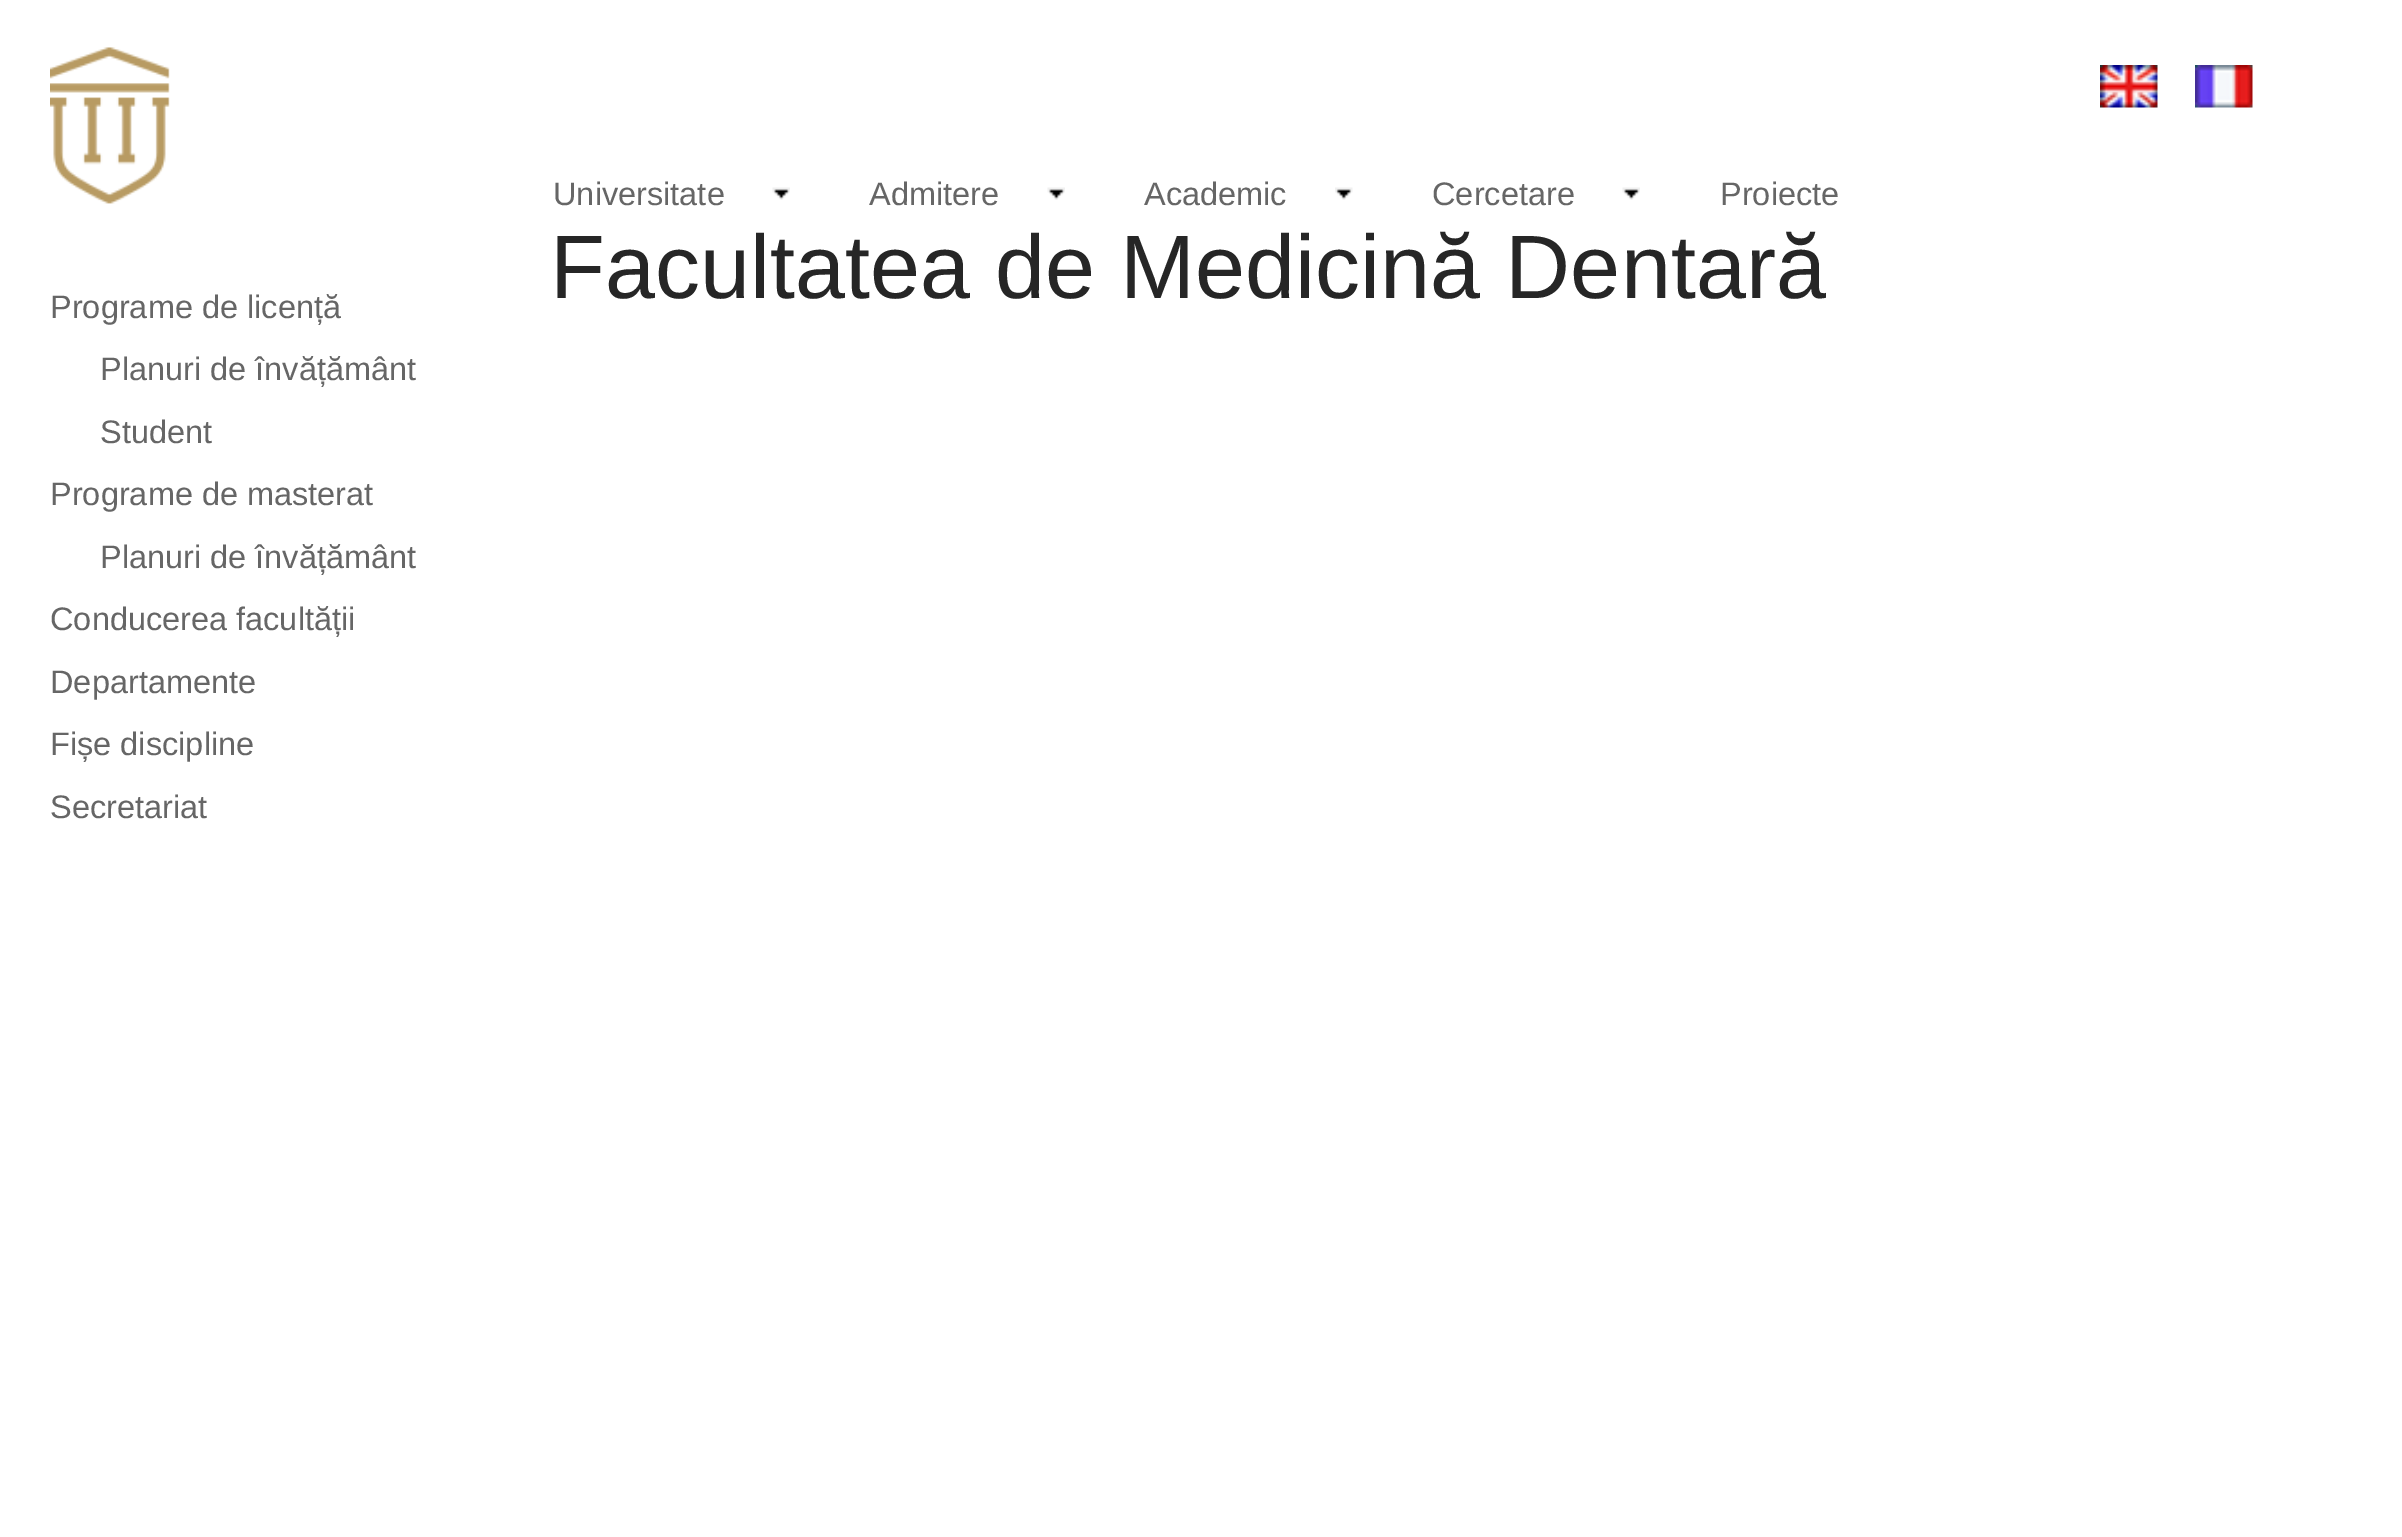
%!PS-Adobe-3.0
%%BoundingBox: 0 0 2402 1537
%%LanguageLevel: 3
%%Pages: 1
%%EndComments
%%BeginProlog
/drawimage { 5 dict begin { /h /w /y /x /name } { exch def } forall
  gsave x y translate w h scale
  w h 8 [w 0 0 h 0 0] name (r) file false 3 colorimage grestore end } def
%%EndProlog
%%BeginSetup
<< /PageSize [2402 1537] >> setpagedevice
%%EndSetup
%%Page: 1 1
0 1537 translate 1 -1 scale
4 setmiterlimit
1 setgray
0 0 2402 1537 rectfill
(images/1.raw) 50 47 120 157 drawimage
(images/2.raw) 2100 65 58 43 drawimage
(images/3.raw) 2195 65 58 43 drawimage
(images/4.raw) 772 187 18 13 drawimage
(images/4.raw) 1047 187 18 13 drawimage
(images/5.raw) 1335 187 18 13 drawimage
(images/4.raw) 1622 187 18 13 drawimage
/LiberationSans-Regular [32.5 0 0 -32.5 0 0] selectfont
0.4 setgray
553 205 moveto (Universitate) show
869 205 moveto (Admitere) show
1144 205 moveto (Academic) show
1432 205 moveto (Cercetare) show
1720 205 moveto (Proiecte) show
/LiberationSans-Regular [90 0 0 -90 0 0] selectfont
0.149 setgray
550 298 moveto (Facultatea de Medicină Dentară) show
/LiberationSans-Regular [32.5 0 0 -32.5 0 0] selectfont
0.4 setgray
50 318 moveto (Programe de licență) show
100 380 moveto (Planuri de învățământ) show
100 443 moveto (Student) show
50 505 moveto (Programe de masterat) show
100 568 moveto (Planuri de învățământ) show
50 630 moveto (Conducerea facultății) show
50 693 moveto (Departamente) show
50 755 moveto (Fișe discipline) show
50 818 moveto (Secretariat) show
showpage
%%EOF
